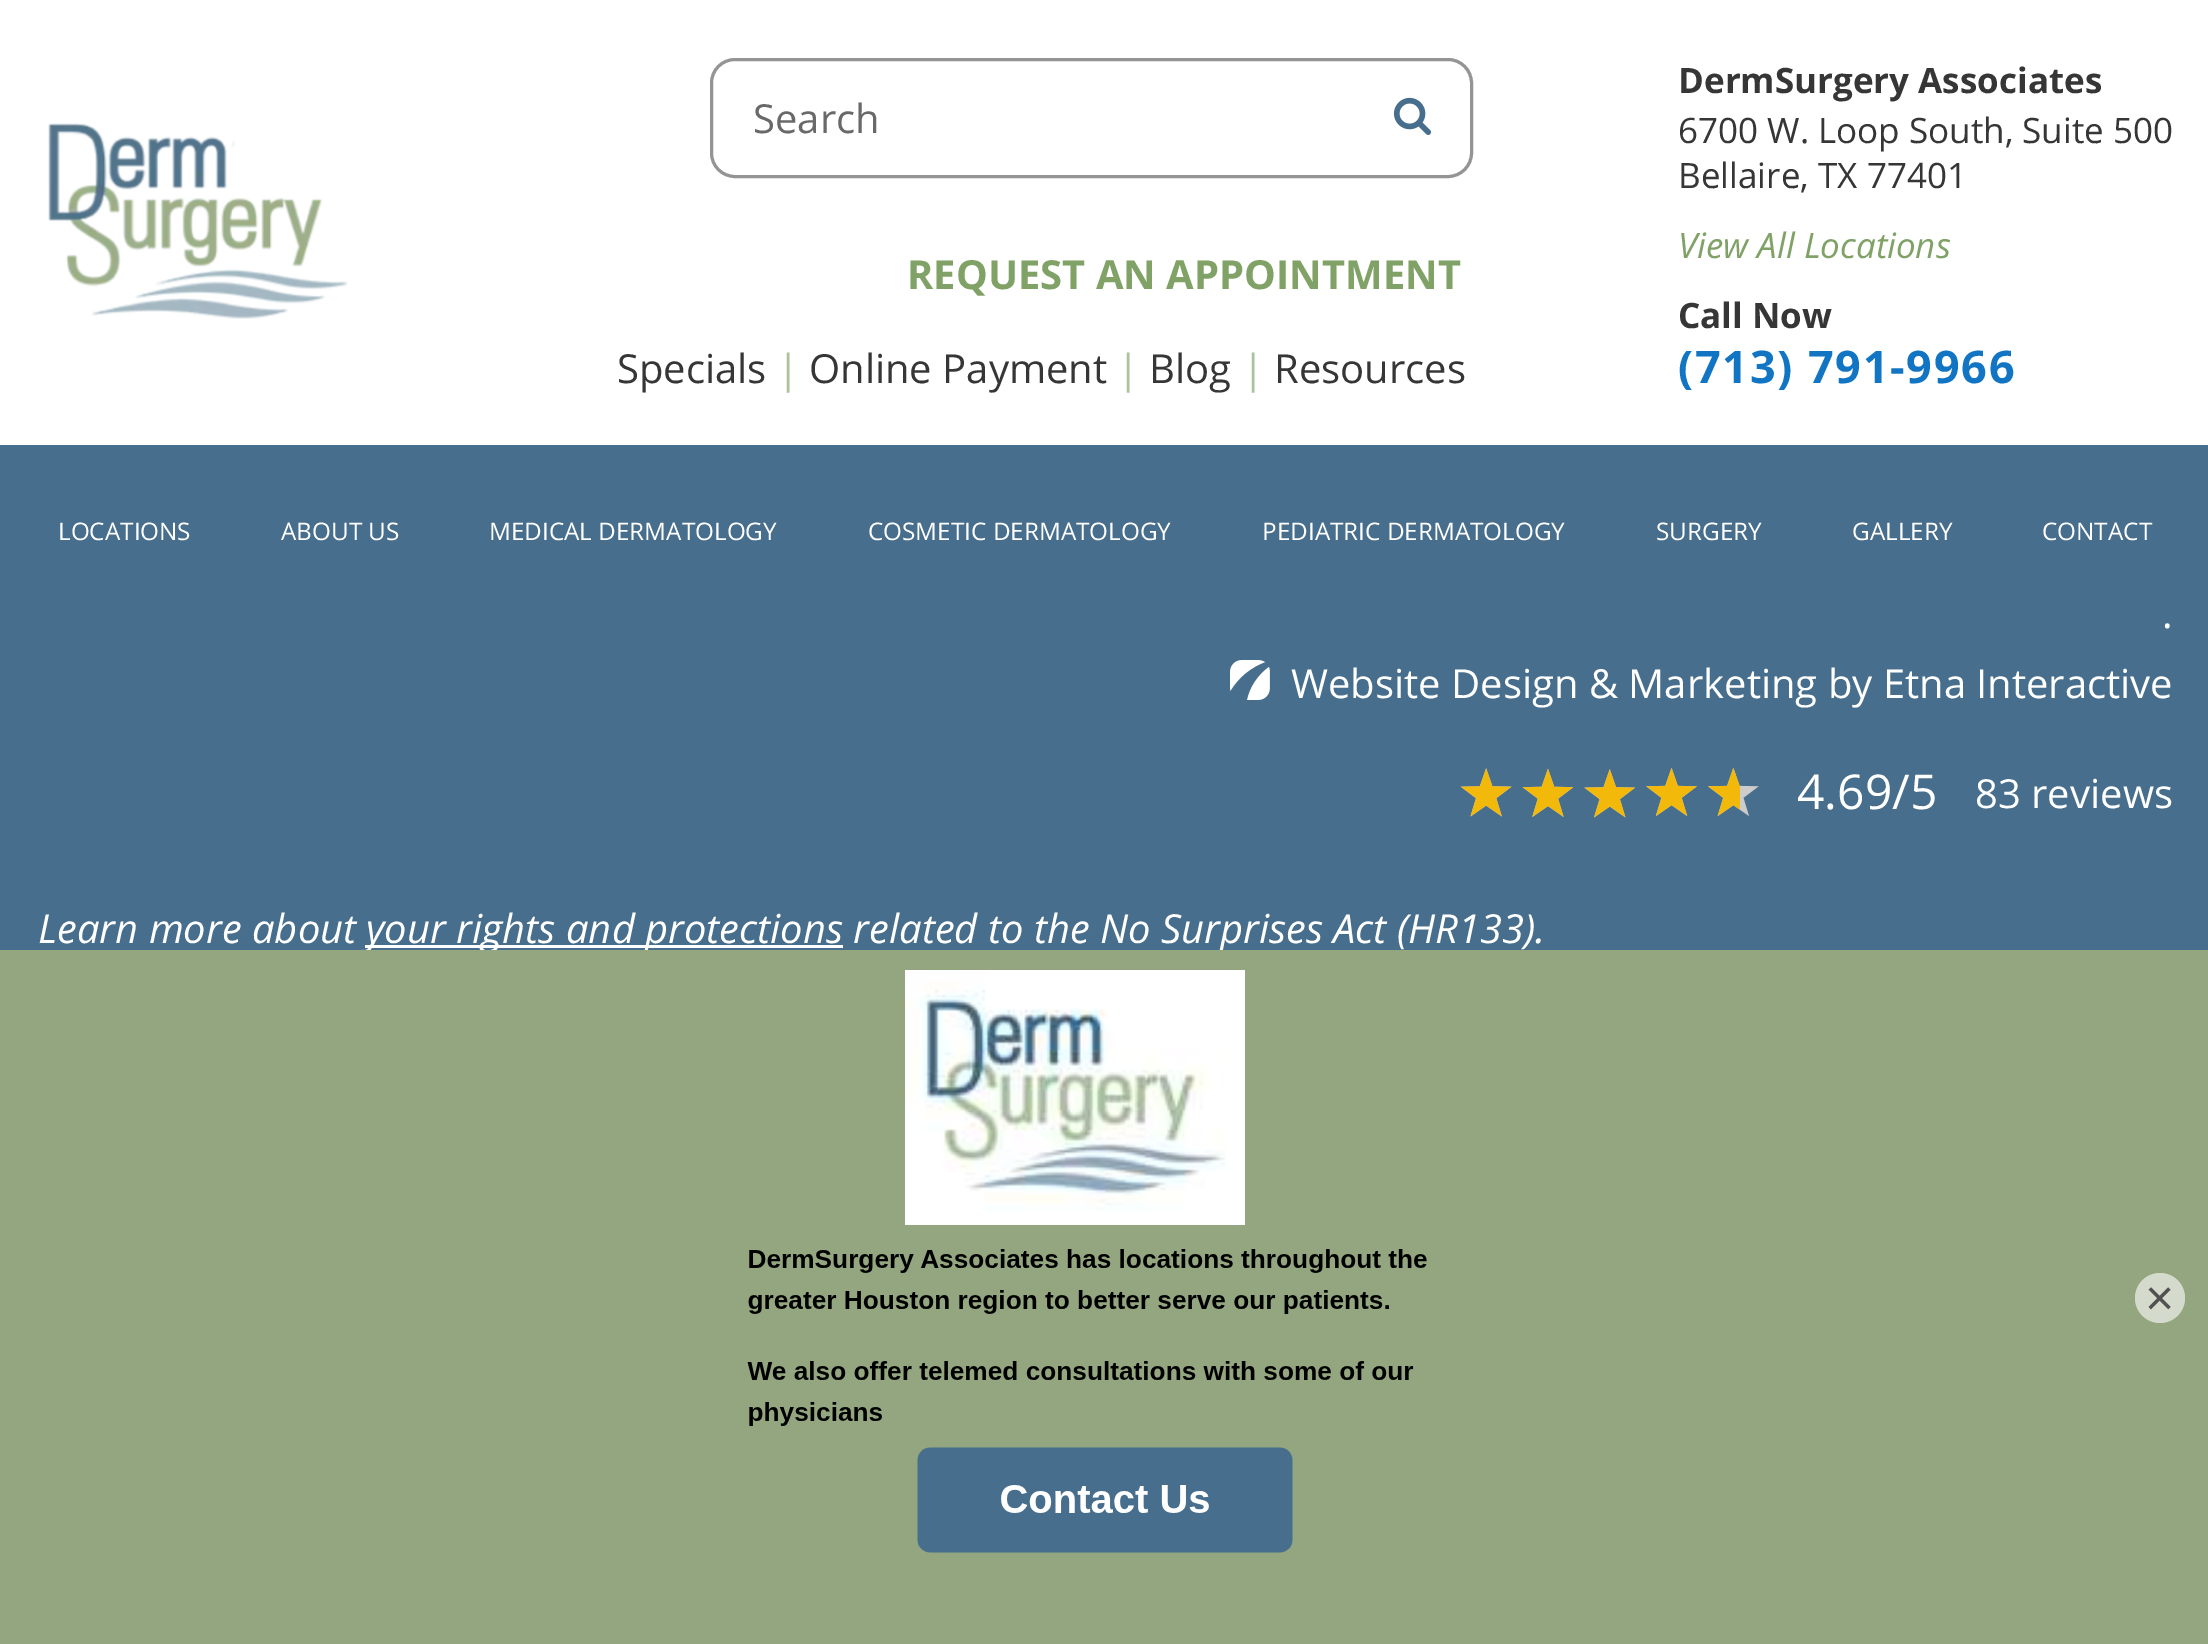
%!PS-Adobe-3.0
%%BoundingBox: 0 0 2208 1644
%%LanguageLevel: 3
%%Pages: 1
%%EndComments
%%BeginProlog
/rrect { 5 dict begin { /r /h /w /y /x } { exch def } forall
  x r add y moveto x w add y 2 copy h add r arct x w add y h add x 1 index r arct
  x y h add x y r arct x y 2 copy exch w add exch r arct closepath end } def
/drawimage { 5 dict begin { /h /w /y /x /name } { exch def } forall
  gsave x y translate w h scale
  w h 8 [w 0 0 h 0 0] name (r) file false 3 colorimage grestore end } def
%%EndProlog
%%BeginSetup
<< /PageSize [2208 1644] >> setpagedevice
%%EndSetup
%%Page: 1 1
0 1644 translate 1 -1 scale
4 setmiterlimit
0.278 0.431 0.549 setrgbcolor
0 0 2208 1644 rectfill
1 setgray
0 0 2208 445 rectfill
(images/1.raw) 48 123 300 196 drawimage
0.58 setgray
3 setlinewidth
711.5 59.5 760 117 23.5 rrect stroke
(images/2.raw) 1393 97 38 38 drawimage
(images/3.raw) 1230 660 40 40 drawimage
(images/4.raw) 1460 768 299 50 drawimage
(images/5.raw) 1460 768 280 50 drawimage
1 setgray
365 945 478 3 rectfill
/OpenSans-Regular [40 0 0 -40 0 0] selectfont
0.412 setgray
753 133 moveto (Search) show
/OpenSans-Bold [40 0 0 -40 0 0] selectfont
0.506 0.635 0.404 setrgbcolor
907 289 moveto (REQUEST AN APPOINTMENT) show
/OpenSans-Regular [40 0 0 -40 0 0] selectfont
0.212 setgray
617 383 moveto (Specials) show
0.678 0.761 0.612 setrgbcolor
777 383 moveto (|) show
0.212 setgray
809 383 moveto (Online Payment) show
0.678 0.761 0.612 setrgbcolor
1117 383 moveto (|) show
0.212 setgray
1149 383 moveto (Blog) show
0.678 0.761 0.612 setrgbcolor
1242 383 moveto (|) show
0.212 setgray
1274 383 moveto (Resources) show
/OpenSans-Bold [35 0 0 -35 0 0] selectfont
1678 93 moveto (DermSurgery Associates) show
/OpenSans-Regular [35 0 0 -35 0 0] selectfont
1678 143 moveto (6700 W. Loop South, Suite 500) show
1678 188 moveto (Bellaire, TX 77401) show
/OpenSans-Italic [35 0 0 -35 0 0] selectfont
0.506 0.635 0.404 setrgbcolor
1678 258 moveto (View All Locations) show
/OpenSans-Bold [35 0 0 -35 0 0] selectfont
0.212 setgray
1678 328 moveto (Call Now) show
/OpenSans-Bold [45 0 0 -45 0 0] selectfont
0.067 0.459 0.765 setrgbcolor
1678 383 moveto 1.75 0 (\(713\) 791-9966) ashow
/OpenSans-Regular [24.25 0 0 -24.25 0 0] selectfont
1 setgray
58 540 moveto (LOCATIONS) show
281 540 moveto (ABOUT US) show
489 540 moveto (MEDICAL DERMATOLOGY) show
868 540 moveto (COSMETIC DERMATOLOGY) show
1262 540 moveto (PEDIATRIC DERMATOLOGY) show
1656 540 moveto (SURGERY) show
1852 540 moveto (GALLERY) show
2042 540 moveto (CONTACT) show
/OpenSans-Regular [40 0 0 -40 0 0] selectfont
2162 628 moveto (.) show
1291 698 moveto (Website Design & Marketing by Etna Interactive) show
/OpenSans-Regular [48 0 0 -48 0 0] selectfont
1797 809 moveto (4.69/5) show
/OpenSans-Regular [40 0 0 -40 0 0] selectfont
1975 808 moveto (83 reviews) show
/OpenSans-Italic [40 0 0 -40 0 0] selectfont
38 943 moveto (Learn more about) show
366 943 moveto (your rights and protections related to the No Surprises Act \(HR133\).) show
(images/6.raw) 0 950 2208 694 drawimage
0.831 0.859 0.8 setrgbcolor
newpath 2160 1298 25 0 360 arc closepath fill
/LiberationSans-Regular [50 0 0 -50 0 0] selectfont
0.322 0.318 0.318 setrgbcolor
2145 1315 moveto (×) show
showpage
%%EOF
